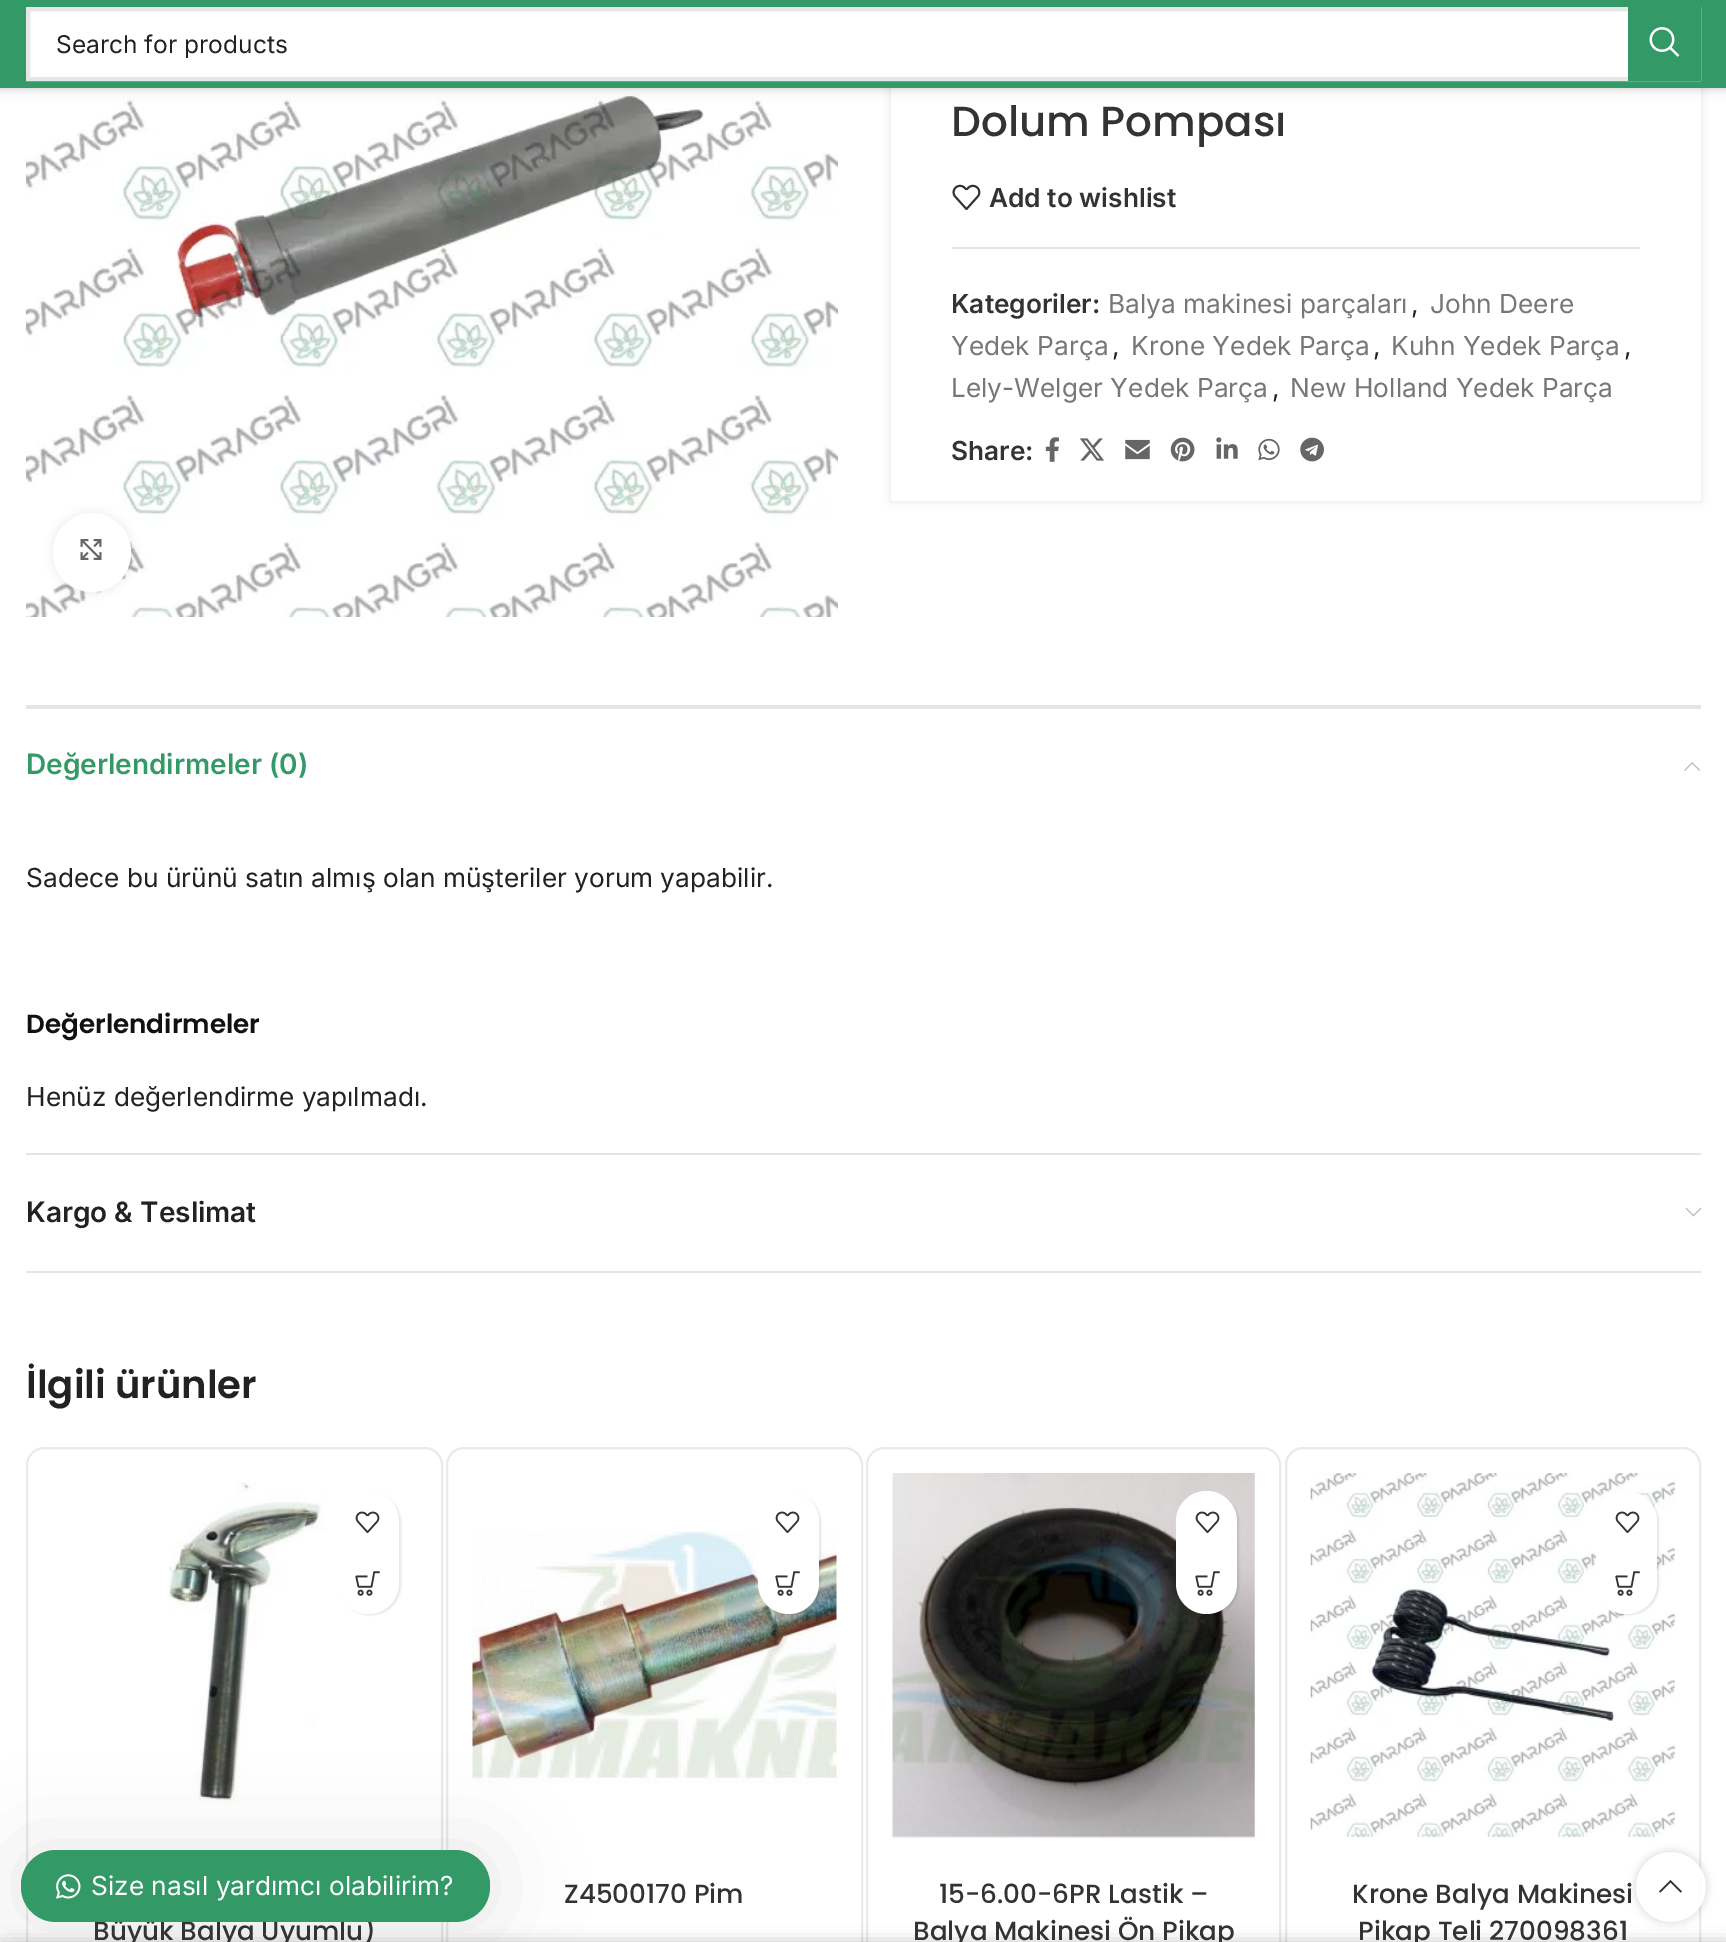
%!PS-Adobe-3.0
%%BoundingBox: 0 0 1726 1942
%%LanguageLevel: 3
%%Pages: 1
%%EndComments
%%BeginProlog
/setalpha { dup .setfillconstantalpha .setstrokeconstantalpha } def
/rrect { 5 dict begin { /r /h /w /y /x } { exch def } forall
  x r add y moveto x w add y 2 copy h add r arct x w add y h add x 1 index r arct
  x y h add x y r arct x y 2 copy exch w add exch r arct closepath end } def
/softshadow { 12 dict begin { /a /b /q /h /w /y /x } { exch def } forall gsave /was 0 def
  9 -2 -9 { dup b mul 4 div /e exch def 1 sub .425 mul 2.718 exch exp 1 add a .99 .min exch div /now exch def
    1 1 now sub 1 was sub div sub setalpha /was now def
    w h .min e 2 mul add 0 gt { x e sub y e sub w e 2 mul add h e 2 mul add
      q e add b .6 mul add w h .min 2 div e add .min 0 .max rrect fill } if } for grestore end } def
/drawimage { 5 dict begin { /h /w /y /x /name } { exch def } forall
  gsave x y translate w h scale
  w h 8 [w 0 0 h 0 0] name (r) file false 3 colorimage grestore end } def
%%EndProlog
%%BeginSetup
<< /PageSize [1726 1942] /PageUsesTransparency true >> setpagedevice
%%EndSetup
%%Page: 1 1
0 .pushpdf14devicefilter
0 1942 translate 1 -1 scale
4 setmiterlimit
1 setgray
0 0 1726 1942 rectfill
(images/2.raw) 26 88 812 529 drawimage
0 setgray
891 -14 810 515 0 4.5 0.1 softshadow
1 setgray
891 88 810 413 rectfill
0 setgray
0 2 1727 87 0 2.5 0.1 softshadow
0 2 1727 87 0 7 0.1 softshadow
0.2 0.6 0.4 setrgbcolor
0 0 1726 88 rectfill
1 setgray
30 11 1598 66 rectfill
0.902 setgray
4 setlinewidth
28 9 1671 70 rectstroke
0.2 0.6 0.4 setrgbcolor
1628 7 73 74 rectfill
(images/1.raw) 1649 27 31 30 drawimage
0 setgray
53 513 78 79 39 4.5 0.08 softshadow
1 setgray
53 513 78 79 39 rrect fill
(images/3.raw) 80 539 22 21 drawimage
(images/4.raw) 952 184 29 26 drawimage
0.894 setgray
952 247 688 2 rectfill
(images/5.raw) 1045 437 14 25 drawimage
(images/6.raw) 1079 438 25 23 drawimage
(images/7.raw) 1125 439 25 21 drawimage
(images/8.raw) 1170 437 25 25 drawimage
(images/9.raw) 1216 437 22 22 drawimage
(images/10.raw) 1258 438 22 23 drawimage
(images/11.raw) 1300 437 24 25 drawimage
26 705 1675 4 rectfill
26 1153 1675 2 rectfill
(images/12.raw) 1684 762 16 9 drawimage
26 1271 1675 2 rectfill
(images/13.raw) 1685 1207 17 10 drawimage
0.918 setgray
2 setlinewidth
27 1448 415 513 17 rrect stroke
(images/14.raw) 168 1482 208 321 drawimage
0 setgray
340 1493 61 122 30.5 1 0.1 softshadow
1 setgray
338 1491 61 123 30.5 rrect fill
(images/15.raw) 355 1511 25 22 drawimage
(images/16.raw) 355 1571 25 25 drawimage
0.918 setgray
447 1448 415 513 17 rrect stroke
(images/17.raw) 472 1531 365 253 drawimage
0 setgray
760 1493 61 122 30.5 1 0.1 softshadow
1 setgray
758 1491 61 123 30.5 rrect fill
(images/15.raw) 775 1511 25 22 drawimage
(images/16.raw) 775 1571 25 25 drawimage
0.918 setgray
867 1448 413 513 17 rrect stroke
(images/18.raw) 892 1473 363 365 drawimage
0 setgray
1178 1493 61 122 30.5 1 0.1 softshadow
1 setgray
1176 1491 61 123 30.5 rrect fill
(images/15.raw) 1195 1511 25 22 drawimage
(images/16.raw) 1195 1571 25 25 drawimage
0.918 setgray
1286 1448 414 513 17 rrect stroke
(images/19.raw) 1310 1473 365 365 drawimage
0 setgray
1598 1493 61 122 30.5 1 0.1 softshadow
1 setgray
1596 1491 61 123 30.5 rrect fill
(images/15.raw) 1615 1511 25 22 drawimage
(images/16.raw) 1615 1571 25 25 drawimage
gsave
newpath 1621 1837 moveto 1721 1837 lineto 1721 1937 lineto 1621 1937 lineto closepath 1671 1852 moveto 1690.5 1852 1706 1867.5 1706 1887 curveto 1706 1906.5 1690.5 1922 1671 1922 curveto 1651.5 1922 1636 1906.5 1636 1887 curveto 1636 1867.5 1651.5 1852 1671 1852 curveto closepath eoclip newpath
0 setgray
1636 1852 70 70 35 4.5 0.17 softshadow
grestore
0 setgray
0 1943 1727 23 0 8 0.12 softshadow
0.9 setalpha
1 setgray
newpath 1671 1887 35 0 360 arc closepath fill
1 setalpha
0.2 setgray
newpath 1680.5 1892.5 moveto 1682 1891.5 lineto 1670.5 1880 lineto 1659 1891.5 lineto 1660.5 1892.5 lineto 1670.5 1882.5 lineto closepath fill
0 setgray
21 1850 469 72 35 44 0.1 softshadow
0 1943 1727 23 0 8 0.14 softshadow
/Inter-Regular [24.5 0 0 -24.5 0 0] selectfont
0.133 setgray
56 53 moveto (Search for products) show
/Poppins-Medium [42 0 0 -42 0 0] selectfont
0.2 setgray
951 136 moveto (Dolum Pompası) show
/Inter-SemiBold [26.25 0 0 -26.25 0 0] selectfont
989 207 moveto (Add to wishlist) show
951 313 moveto (Kategoriler:) show
/Inter-Regular [26.25 0 0 -26.25 0 0] selectfont
0.467 setgray
1108 313 moveto (Balya makinesi parçaları) show
0.133 setgray
1411 313 moveto (,) show
0.467 setgray
1430 313 moveto (John Deere) show
951 355 moveto (Yedek Parça) show
0.133 setgray
1112 355 moveto (,) show
0.467 setgray
1131 355 moveto (Krone Yedek Parça) show
0.133 setgray
1373 355 moveto (,) show
0.467 setgray
1391 355 moveto (Kuhn Yedek Parça) show
0.133 setgray
1624 355 moveto (,) show
0.467 setgray
951 397 moveto (Lely-Welger Yedek Parça) show
0.133 setgray
1272 397 moveto (,) show
0.467 setgray
1290 397 moveto (New Holland Yedek Parça) show
/Inter-SemiBold [26.25 0 0 -26.25 0 0] selectfont
0.2 setgray
951 460 moveto (Share:) show
/Inter-SemiBold [28 0 0 -28 0 0] selectfont
0.2 0.6 0.4 setrgbcolor
26 774 moveto (Değerlendirmeler \(0\)) show
/Inter-Regular [26.25 0 0 -26.25 0 0] selectfont
0.133 setgray
26 887 moveto (Sadece bu ürünü satın almış olan müşteriler yorum yapabilir.) show
/Poppins-SemiBold [26.25 0 0 -26.25 0 0] selectfont
0.067 setgray
26 1033 moveto (Değerlendirmeler) show
/Inter-Regular [26.25 0 0 -26.25 0 0] selectfont
0.133 setgray
26 1106 moveto (Henüz değerlendirme yapılmadı.) show
/Inter-SemiBold [28 0 0 -28 0 0] selectfont
26 1222 moveto (Kargo & Teslimat) show
/Poppins-SemiBold [38.5 0 0 -38.5 0 0] selectfont
26 1398 moveto (İlgili ürünler) show
/Poppins-Medium [26.25 0 0 -26.25 0 0] selectfont
0.2 setgray
93 1940 moveto (Büyük Balya Uyumlu\)) show
564 1903 moveto (Z4500170 Pim) show
939 1903 moveto (15-6.00-6PR Lastik –) show
913 1940 moveto (Balya Makinesi Ön Pikap) show
1352 1903 moveto (Krone Balya Makinesi) show
1358 1940 moveto (Pikap Teli 270098361) show
0.2 0.6 0.4 setrgbcolor
21 1850 469 72 35 rrect fill
(images/20.raw) 56 1874 25 25 drawimage
/Inter-Regular [26.25 0 0 -26.25 0 0] selectfont
1 setgray
91 1895 moveto (Size nasıl yardımcı olabilirim?) show
.poppdf14devicefilter showpage
%%EOF
